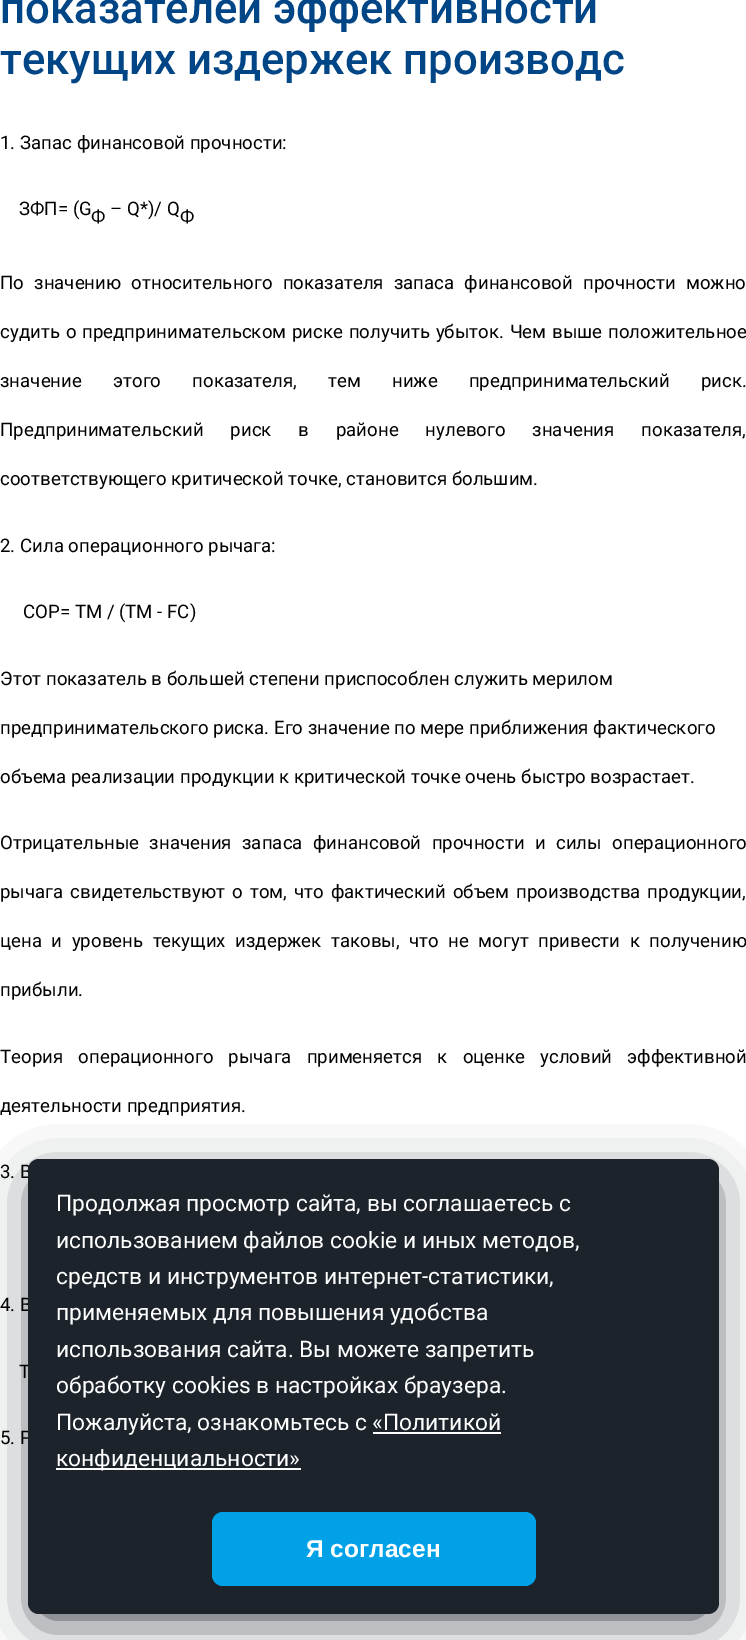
%!PS-Adobe-3.0
%%BoundingBox: 0 0 746 1640
%%LanguageLevel: 3
%%Pages: 1
%%EndComments
%%BeginProlog
/setalpha { dup .setfillconstantalpha .setstrokeconstantalpha } def
/rrect { 5 dict begin { /r /h /w /y /x } { exch def } forall
  x r add y moveto x w add y 2 copy h add r arct x w add y h add x 1 index r arct
  x y h add x y r arct x y 2 copy exch w add exch r arct closepath end } def
/softshadow { 12 dict begin { /a /b /q /h /w /y /x } { exch def } forall gsave /was 0 def
  9 -2 -9 { dup b mul 4 div /e exch def 1 sub .425 mul 2.718 exch exp 1 add a .99 .min exch div /now exch def
    1 1 now sub 1 was sub div sub setalpha /was now def
    w h .min e 2 mul add 0 gt { x e sub y e sub w e 2 mul add h e 2 mul add
      q e add b .6 mul add w h .min 2 div e add .min 0 .max rrect fill } if } for grestore end } def
%%EndProlog
%%BeginSetup
<< /PageSize [746 1640] /PageUsesTransparency true >> setpagedevice
%%EndSetup
%%Page: 1 1
0 .pushpdf14devicefilter
0 1640 translate 1 -1 scale
4 setmiterlimit
1 setgray
0 0 746 1640 rectfill
0.11 0.137 0.169 setrgbcolor
42 1187 663 427 0 28 1 softshadow
/Roboto-Medium [43.75 0 0 -43.75 0 0] selectfont
0 0.271 0.522 setrgbcolor
0 23 moveto (показателей эффективности) show
0 74 moveto (текущих издержек производс) show
/Roboto-Regular [18.65 0 0 -18.65 0 0] selectfont
0 setgray
0 149 moveto (1. Запас финансовой прочности:) show
19 215 moveto (ЗФП= \(G) show
91 223 moveto (Ф) show
110 215 moveto (– Q*\)/ Q) show
180 223 moveto (Ф) show
0 289 moveto 5.5 0 32 (По значению относительного показателя запаса финансовой прочности можно) widthshow
0 338 moveto 1.25 0 32 (судить о предпринимательском риске получить убыток. Чем выше положительное) widthshow
0 387 moveto 26.5 0 32 (значение этого показателя, тем ниже предпринимательский риск.) widthshow
0 436 moveto 22.25 0 32 (Предпринимательский риск в районе нулевого значения показателя,) widthshow
0 485 moveto (соответствующего критической точке, становится большим.) show
0 552 moveto (2. Сила операционного рычага:) show
23 618 moveto (СОР= ТМ / \(ТМ - FC\)) show
0 685 moveto (Этот показатель в большей степени приспособлен служить мерилом) show
0 734 moveto (предпринимательского риска. Его значение по мере приближения фактического) show
0 783 moveto (объема реализации продукции к критической точке очень быстро возрастает.) show
0 849 moveto 5.75 0 32 (Отрицательные значения запаса финансовой прочности и силы операционного) widthshow
0 898 moveto 2.5 0 32 (рычага свидетельствуют о том, что фактический объем производства продукции,) widthshow
0 947 moveto 4.9 0 32 (цена и уровень текущих издержек таковы, что не могут привести к получению) widthshow
0 996 moveto (прибыли.) show
0 1063 moveto 10.5 0 32 (Теория операционного рычага применяется к оценке условий эффективной) widthshow
0 1112 moveto (деятельности предприятия.) show
0 1178 moveto (3. В) show
0 1311 moveto (4. В) show
19 1378 moveto (T) show
0 1444 moveto (5. Р) show
0.11 0.137 0.169 setrgbcolor
28 1159 691 455 11 rrect fill
/Roboto-Regular [22.75 0 0 -22.75 0 0] selectfont
1 setgray
56 1211 moveto (Продолжая просмотр сайта, вы соглашаетесь с) show
56 1248 moveto (использованием файлов cookie и иных методов,) show
56 1284 moveto (средств и инструментов интернет-статистики,) show
56 1320 moveto (применяемых для повышения удобства) show
56 1357 moveto (использования сайта. Вы можете запретить) show
56 1393 moveto (обработку cookies в настройках браузера.) show
56 1430 moveto (Пожалуйста, ознакомьтесь с «Политикой) show
373 1432 128 2 rectfill
56 1468 245 2 rectfill
56 1466 moveto (конфиденциальности») show
0 0.631 0.906 setrgbcolor
212 1512 324 74 11 rrect fill
/LiberationSans-Bold [24.5 0 0 -24.5 0 0] selectfont
1 setgray
306 1557 moveto (Я согласен) show
.poppdf14devicefilter showpage
%%EOF
